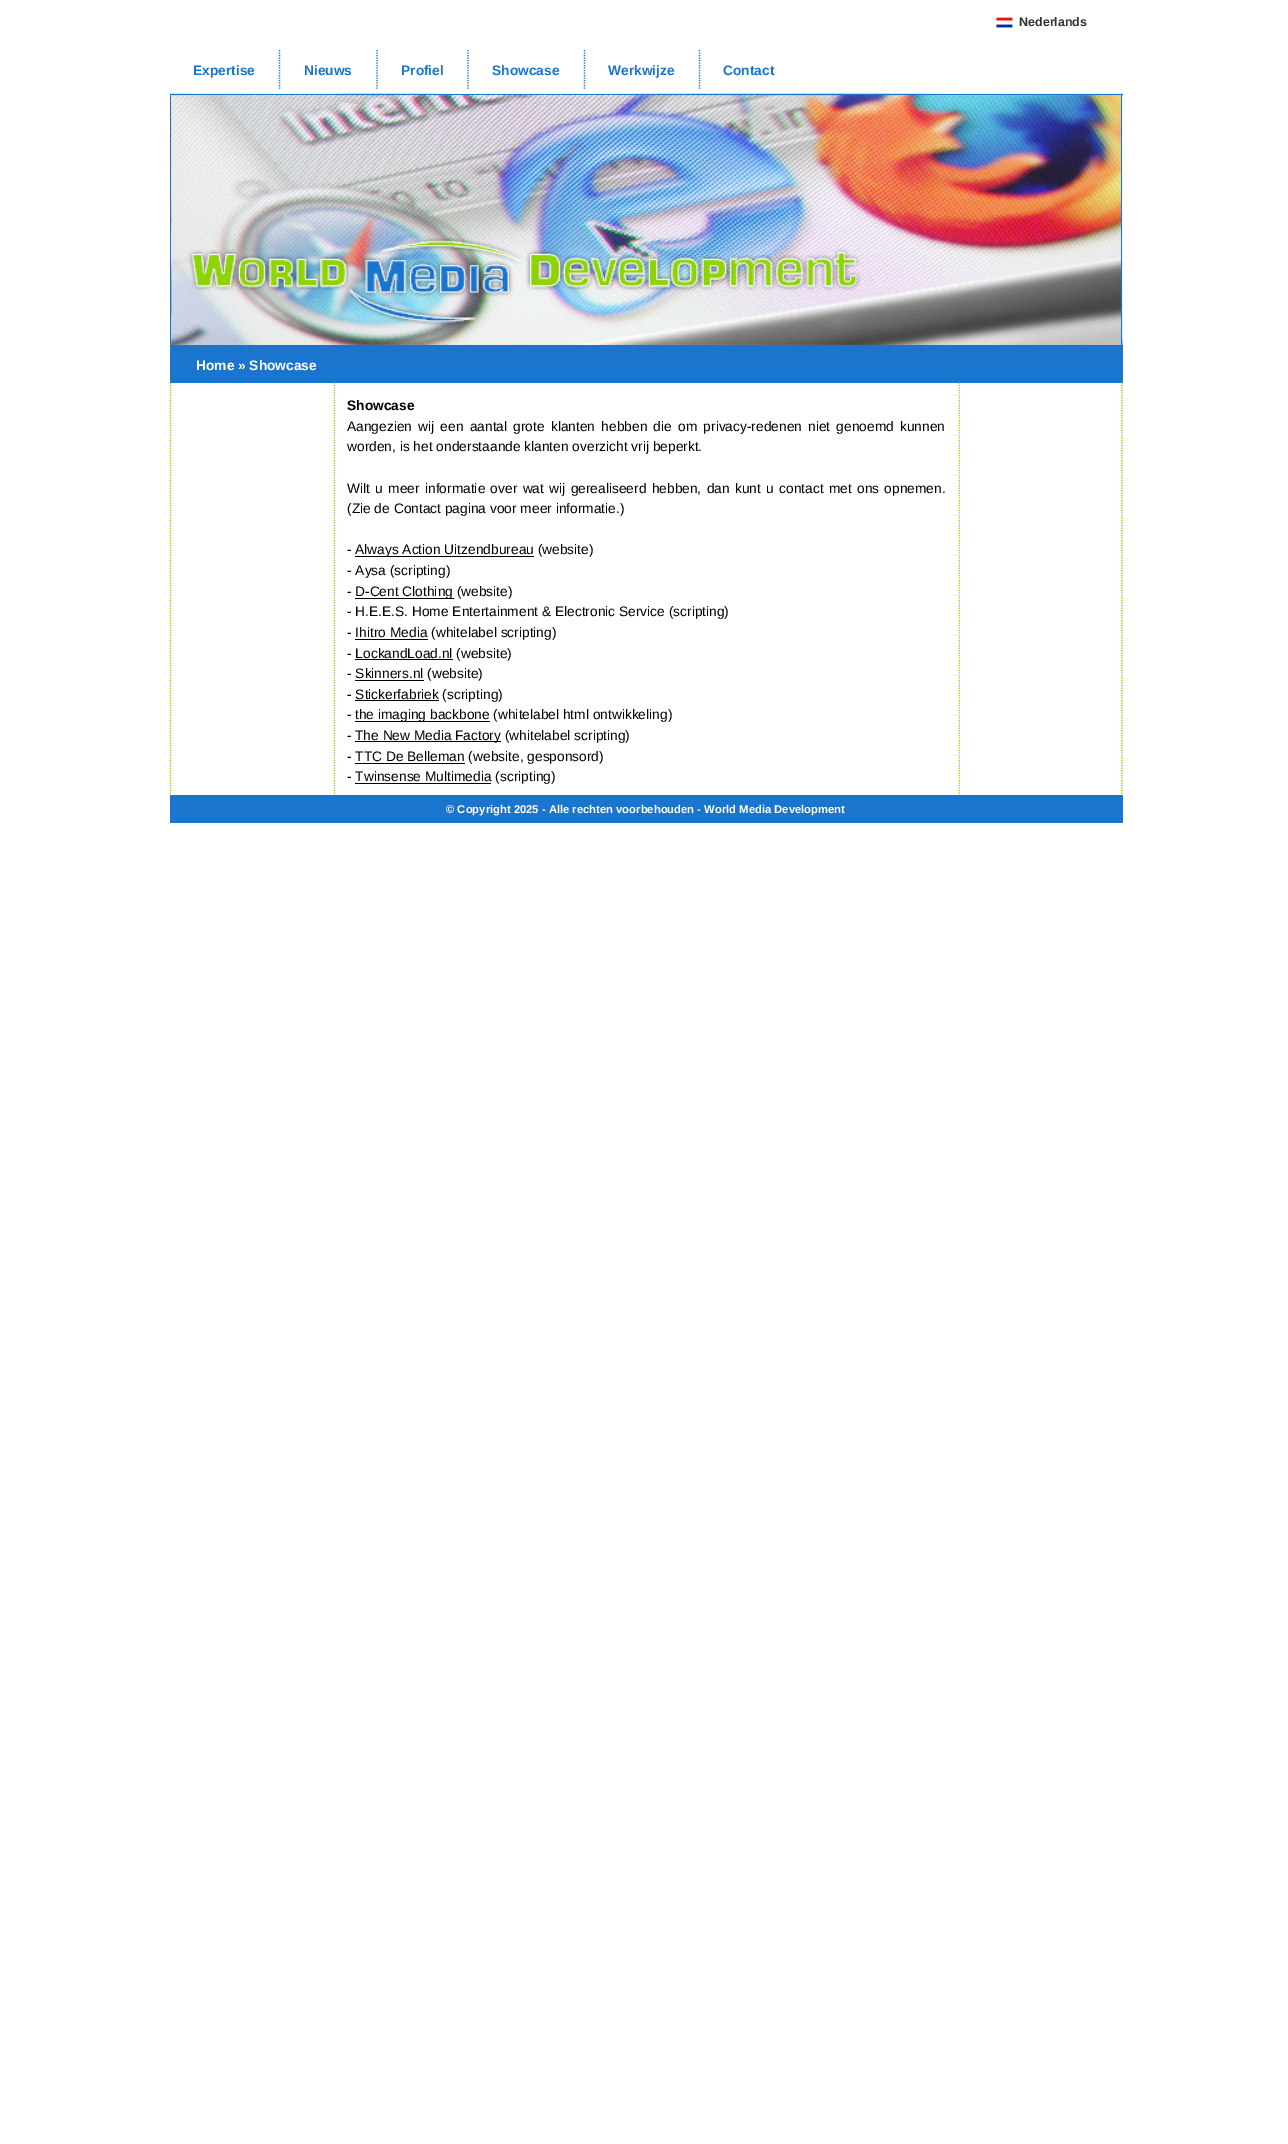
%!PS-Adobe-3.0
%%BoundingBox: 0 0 1288 2144
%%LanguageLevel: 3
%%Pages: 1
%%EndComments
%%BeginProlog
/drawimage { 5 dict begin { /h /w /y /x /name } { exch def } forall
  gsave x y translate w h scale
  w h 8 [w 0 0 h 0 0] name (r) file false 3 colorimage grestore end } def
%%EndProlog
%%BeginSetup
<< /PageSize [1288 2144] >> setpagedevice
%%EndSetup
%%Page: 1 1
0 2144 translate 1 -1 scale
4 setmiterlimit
1 setgray
0 0 1288 2144 rectfill
(images/1.raw) 996 17 17 11 drawimage
0.102 0.459 0.808 setrgbcolor
1.2 setlinewidth
[1.25 1.25] 0 setdash
newpath 279.5 50 moveto 279.5 90 lineto stroke
newpath 377 50 moveto 377 90 lineto stroke
newpath 468 50 moveto 468 90 lineto stroke
newpath 584.5 50 moveto 584.5 90 lineto stroke
newpath 699.5 50 moveto 699.5 90 lineto stroke
(images/2.raw) 170 93 953 252 drawimage
170 94 953 1 rectfill
1121 94 1 251 rectfill
170 94 1 251 rectfill
170 345 953 38 rectfill
0.561 0.827 0 setrgbcolor
newpath 334.5 382.5 moveto 334.5 795 lineto stroke
newpath 170.5 382.5 moveto 170.5 795 lineto stroke
1 setgray
335 383 1 411 rectfill
0.561 0.827 0 setrgbcolor
newpath 959.5 382.5 moveto 959.5 795 lineto stroke
0 setgray
355 556 179 1 rectfill
355 598 99 1 rectfill
355 639 73 1 rectfill
355 659 98 1 rectfill
355 680 69 1 rectfill
355 700 84 1 rectfill
355 721 135 1 rectfill
355 741 146 1 rectfill
355 763 110 1 rectfill
355 783 136 1 rectfill
1 setgray
960 383 1 411 rectfill
0.561 0.827 0 setrgbcolor
newpath 1122 382.5 moveto 1122 795 lineto stroke
0.102 0.459 0.808 setrgbcolor
170 795 953 28 rectfill
/LiberationSans-Bold [12.5 0 0 -12.5 0 0] selectfont
0.2 setgray
1019 26 moveto (Nederlands) show
/LiberationSans-Bold [13.75 0 0 -13.75 0 0] selectfont
0.102 0.459 0.808 setrgbcolor
193 75 moveto (Expertise) show
304 75 moveto (Nieuws) show
401 75 moveto (Profiel) show
492 75 moveto (Showcase) show
608 75 moveto (Werkwijze) show
723 75 moveto (Contact) show
1 setgray
196 370 moveto (Home » Showcase) show
0 setgray
347 410 moveto (Showcase) show
/LiberationSans-Regular [13.75 0 0 -13.75 0 0] selectfont
347 431 moveto 2.4 0 32 (Aangezien wij een aantal grote klanten hebben die om privacy-redenen niet genoemd kunnen) widthshow
347 451 moveto (worden, is het onderstaande klanten overzicht vrij beperkt.) show
347 493 moveto 1.5 0 32 (Wilt u meer informatie over wat wij gerealiseerd hebben, dan kunt u contact met ons opnemen.) widthshow
347 513 moveto (\(Zie de Contact pagina voor meer informatie.\)) show
347 554 moveto (-) show
355 554 moveto (Always Action Uitzendbureau \(website\)) show
347 575 moveto (- Aysa \(scripting\)) show
347 596 moveto (-) show
355 596 moveto (D-Cent Clothing \(website\)) show
347 616 moveto (- H.E.E.S. Home Entertainment & Electronic Service \(scripting\)) show
347 637 moveto (- Ihitro Media \(whitelabel scripting\)) show
347 658 moveto (- LockandLoad.nl \(website\)) show
347 678 moveto (- Skinners.nl \(website\)) show
347 699 moveto (- Stickerfabriek \(scripting\)) show
347 719 moveto (-) show
355 719 moveto (the imaging backbone \(whitelabel html ontwikkeling\)) show
347 740 moveto (-) show
355 740 moveto (The New Media Factory \(whitelabel scripting\)) show
347 761 moveto (- TTC De Belleman \(website, gesponsord\)) show
347 781 moveto (- Twinsense Multimedia \(scripting\)) show
/LiberationSans-Bold [11.25 0 0 -11.25 0 0] selectfont
1 setgray
446 813 moveto (© Copyright 2025 - Alle rechten voorbehouden - World Media Development) show
showpage
%%EOF
